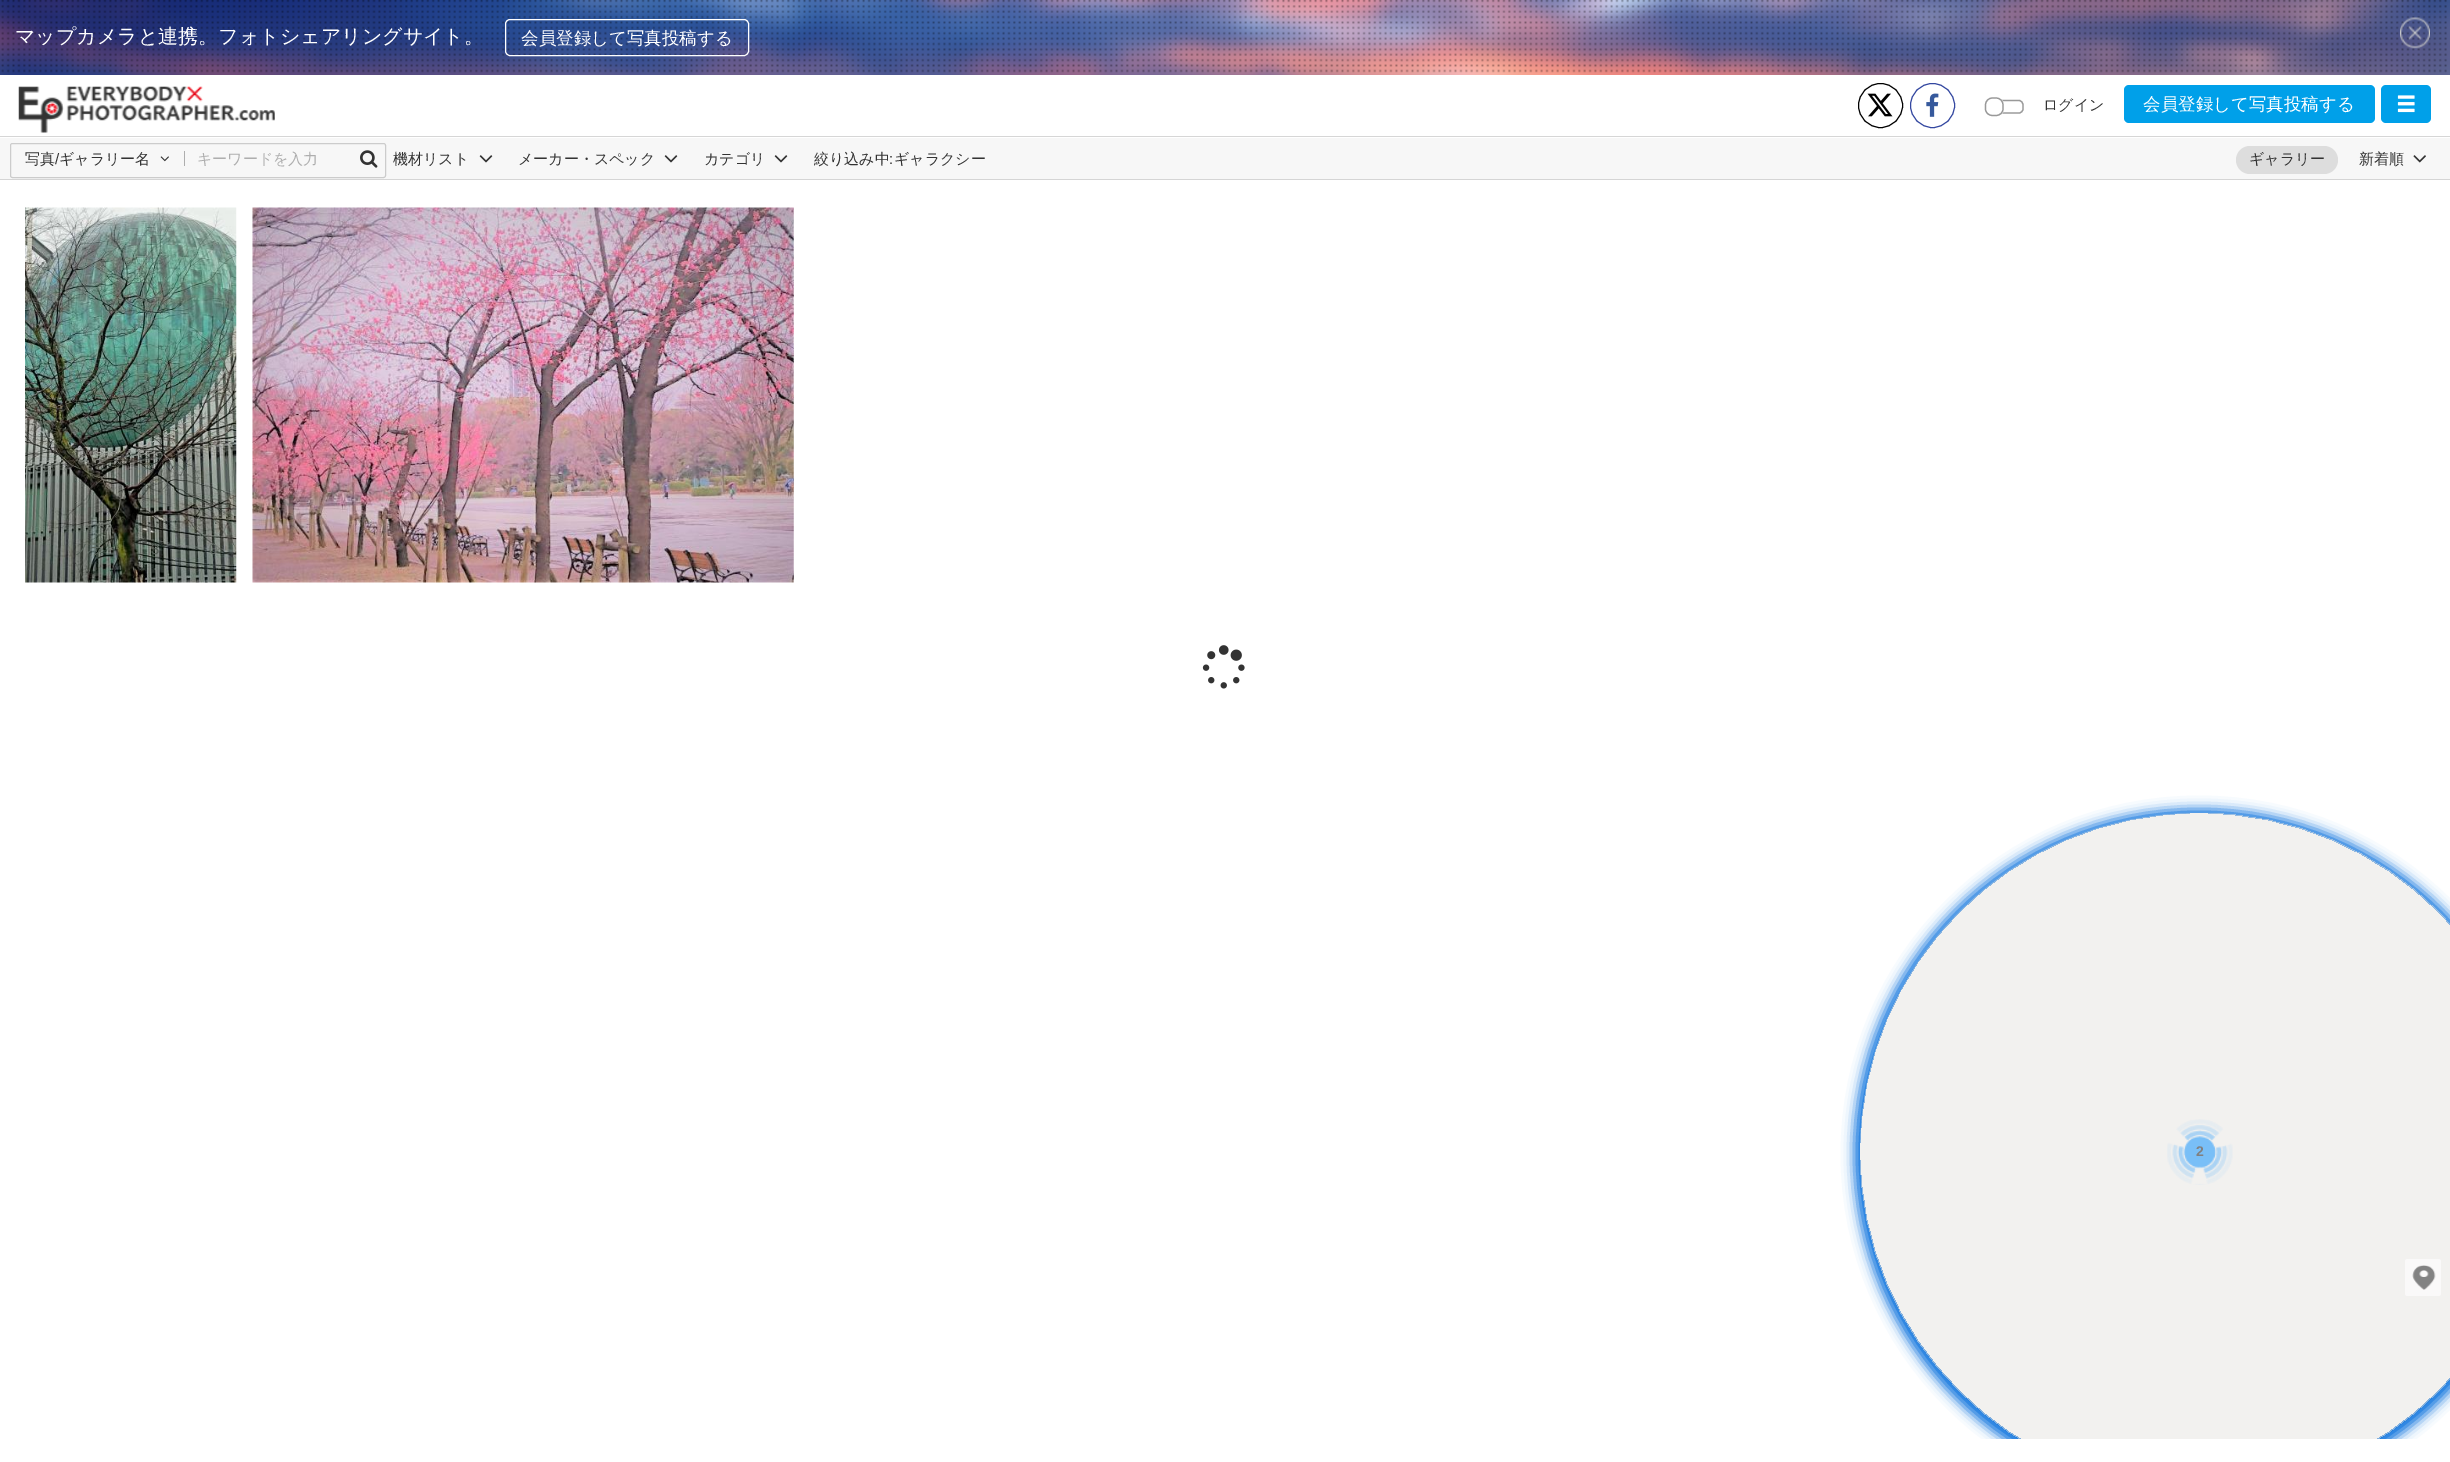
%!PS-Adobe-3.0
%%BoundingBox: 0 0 2450 1462
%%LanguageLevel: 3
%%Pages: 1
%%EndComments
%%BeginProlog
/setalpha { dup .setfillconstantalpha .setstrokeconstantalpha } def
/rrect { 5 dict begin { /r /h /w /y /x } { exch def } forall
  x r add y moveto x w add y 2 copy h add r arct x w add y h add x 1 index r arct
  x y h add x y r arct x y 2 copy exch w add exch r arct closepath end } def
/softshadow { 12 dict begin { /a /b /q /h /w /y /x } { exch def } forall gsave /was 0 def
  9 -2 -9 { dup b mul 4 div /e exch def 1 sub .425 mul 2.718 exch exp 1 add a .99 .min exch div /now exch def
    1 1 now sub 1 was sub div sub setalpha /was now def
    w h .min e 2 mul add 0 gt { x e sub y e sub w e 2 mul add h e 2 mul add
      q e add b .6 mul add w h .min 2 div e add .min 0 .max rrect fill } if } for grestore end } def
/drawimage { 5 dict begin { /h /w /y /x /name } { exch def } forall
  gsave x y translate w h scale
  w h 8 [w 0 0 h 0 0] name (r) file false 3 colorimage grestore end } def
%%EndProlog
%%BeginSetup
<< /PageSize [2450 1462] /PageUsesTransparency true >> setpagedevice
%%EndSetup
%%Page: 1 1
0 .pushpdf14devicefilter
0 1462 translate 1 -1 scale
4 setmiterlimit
1 setgray
0 0 2450 1462 rectfill
(images/1.raw) 0 0 2450 75 drawimage
505.5 19.5 243 36 4.5 rrect stroke
(images/2.raw) 2400 17 30 32 drawimage
0.839 setgray
0 136 2450 1 rectfill
(images/3.raw) 18 86 257 47 drawimage
0 setgray
newpath 1880.5 105.5 22 0 360 arc closepath stroke
(images/4.raw) 1867 93 26 24 drawimage
0.2 0.278 0.627 setrgbcolor
newpath 1932.5 105.5 22 0 360 arc closepath stroke
(images/5.raw) 1926 93 13 24 drawimage
0.6 setgray
1.2 setlinewidth
newpath 2019 113 moveto 1999 113 lineto 1996.5 113 1994.5 111 1994.5 109 curveto 1994.5 105 lineto 1994.5 102.5 1996.5 100.5 1999 100.5 curveto 2019 100.5 lineto 2021 100.5 2023 102.5 2023 105 curveto 2023 109 lineto 2023 111 2021 113 2019 113 curveto closepath stroke
1 setgray
newpath 1996 116 moveto 1992.5 116 lineto 1988.5 116 1985 113 1985 109 curveto 1985 105 lineto 1985 101 1988.5 97.5 1992.5 97.5 curveto 1996 97.5 lineto 2000.5 97.5 2004 101 2004 105 curveto 2004 109 lineto 2004 113 2000.5 116 1996 116 curveto closepath fill
0.6 setgray
newpath 1996 115.5 moveto 1992.5 115.5 lineto 1988.5 115.5 1985.5 112.5 1985.5 109 curveto 1985.5 105 lineto 1985.5 101 1988.5 98 1992.5 98 curveto 1996 98 lineto 2000 98 2003 101 2003 105 curveto 2003 109 lineto 2003 112.5 2000 115.5 1996 115.5 curveto closepath stroke
0 0.627 0.914 setrgbcolor
2124 85 251 38 5 rrect fill
2381 85 50 38 5 rrect fill
(images/6.raw) 2397 95 18 18 drawimage
0.969 setgray
0 138 2450 41 rectfill
0.835 setgray
0 179 2450 1 rectfill
0.8 setgray
1 setlinewidth
10.5 143.5 375 34 2 rrect stroke
(images/7.raw) 160 156 9 6 drawimage
0.682 setgray
184 151 1 15 rectfill
(images/8.raw) 360 150 18 18 drawimage
(images/9.raw) 479 155 14 8 drawimage
(images/9.raw) 664 155 14 8 drawimage
(images/9.raw) 774 155 14 8 drawimage
0.867 setgray
2236 146 102 28 14 rrect fill
(images/10.raw) 2413 155 13 8 drawimage
(images/11.raw) 25 207 212 376 drawimage
(images/12.raw) 252 207 542 376 drawimage
(images/13.raw) 1202 645 43 44 drawimage
gsave
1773 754 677 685 rectclip
newpath 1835 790 moveto 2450 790 lineto 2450 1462 lineto 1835 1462 lineto closepath 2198.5 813 moveto 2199.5 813 lineto 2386.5 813 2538 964.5 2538 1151.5 curveto 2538 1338.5 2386.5 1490 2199.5 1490 curveto 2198.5 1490 lineto 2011.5 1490 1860 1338.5 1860 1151.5 curveto 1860 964.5 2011.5 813 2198.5 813 curveto closepath eoclip newpath
0.027 0.439 0.867 setrgbcolor
1854 809 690 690 345 6 1 softshadow
grestore
gsave
1860 813 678 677 338.5 rrect clip newpath
1860 813 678 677 338.5 rrect clip newpath
0.5 setalpha
0.898 0.89 0.875 setrgbcolor
newpath 2198.5 813 moveto 2450 813 lineto 2450 1439 lineto 1860 1439 lineto 1860 1151.5 lineto 1860 964.5 2011.5 813 2198.5 813 curveto closepath fill
grestore
(images/14.raw) 2167 1119 66 66 drawimage
0.98 0.976 0.976 setrgbcolor
2405 1259 36 37 2.5 rrect fill
(images/15.raw) 2412 1265 24 25 drawimage
/WenQuanYiZenHei-Medium [20 0 0 -20 0 0] selectfont
1 setgray
15 43 moveto (マップカメラと連携。フォトシェアリングサイト。) show
/WenQuanYiZenHei-Medium [17.5 0 0 -17.5 0 0] selectfont
521 44 moveto (会員登録して写真投稿する) show
/WenQuanYiZenHei-Medium [15 0 0 -15 0 0] selectfont
0.2 setgray
2043 110 moveto (ログイン) show
/WenQuanYiZenHei-Medium [17.5 0 0 -17.5 0 0] selectfont
1 setgray
2143 110 moveto (会員登録して写真投稿する) show
/WenQuanYiZenHei-Medium [15 0 0 -15 0 0] selectfont
0.2 setgray
25 164 moveto (写真) show
/LiberationSans-Regular [15 0 0 -15 0 0] selectfont
55 164 moveto (/) show
/WenQuanYiZenHei-Medium [15 0 0 -15 0 0] selectfont
59 164 moveto (ギャラリー名) show
0.682 setgray
197 164 moveto (キーワードを入力) show
0.2 setgray
393 164 moveto (機材リスト) show
518 164 moveto (メーカー・スペック) show
704 164 moveto (カテゴリ) show
814 164 moveto (絞り込み中) show
/LiberationSans-Regular [15 0 0 -15 0 0] selectfont
889 164 moveto (:) show
/WenQuanYiZenHei-Medium [15 0 0 -15 0 0] selectfont
894 164 moveto (ギャラクシー) show
2249 164 moveto (ギャラリー) show
2359 164 moveto (新着順) show
0.357 0.396 0.361 setrgbcolor
74 554 moveto (ノラ) show
/LiberationSans-Regular [15 0 0 -15 0 0] selectfont
0.325 0.361 0.329 setrgbcolor
151 554 moveto (3) show
0.404 0.435 0.412 setrgbcolor
209 554 moveto (0) show
/LiberationSans-Bold [14 0 0 -14 0 0] selectfont
0.502 setgray
2196 1156 moveto (2) show
.poppdf14devicefilter showpage
%%EOF
